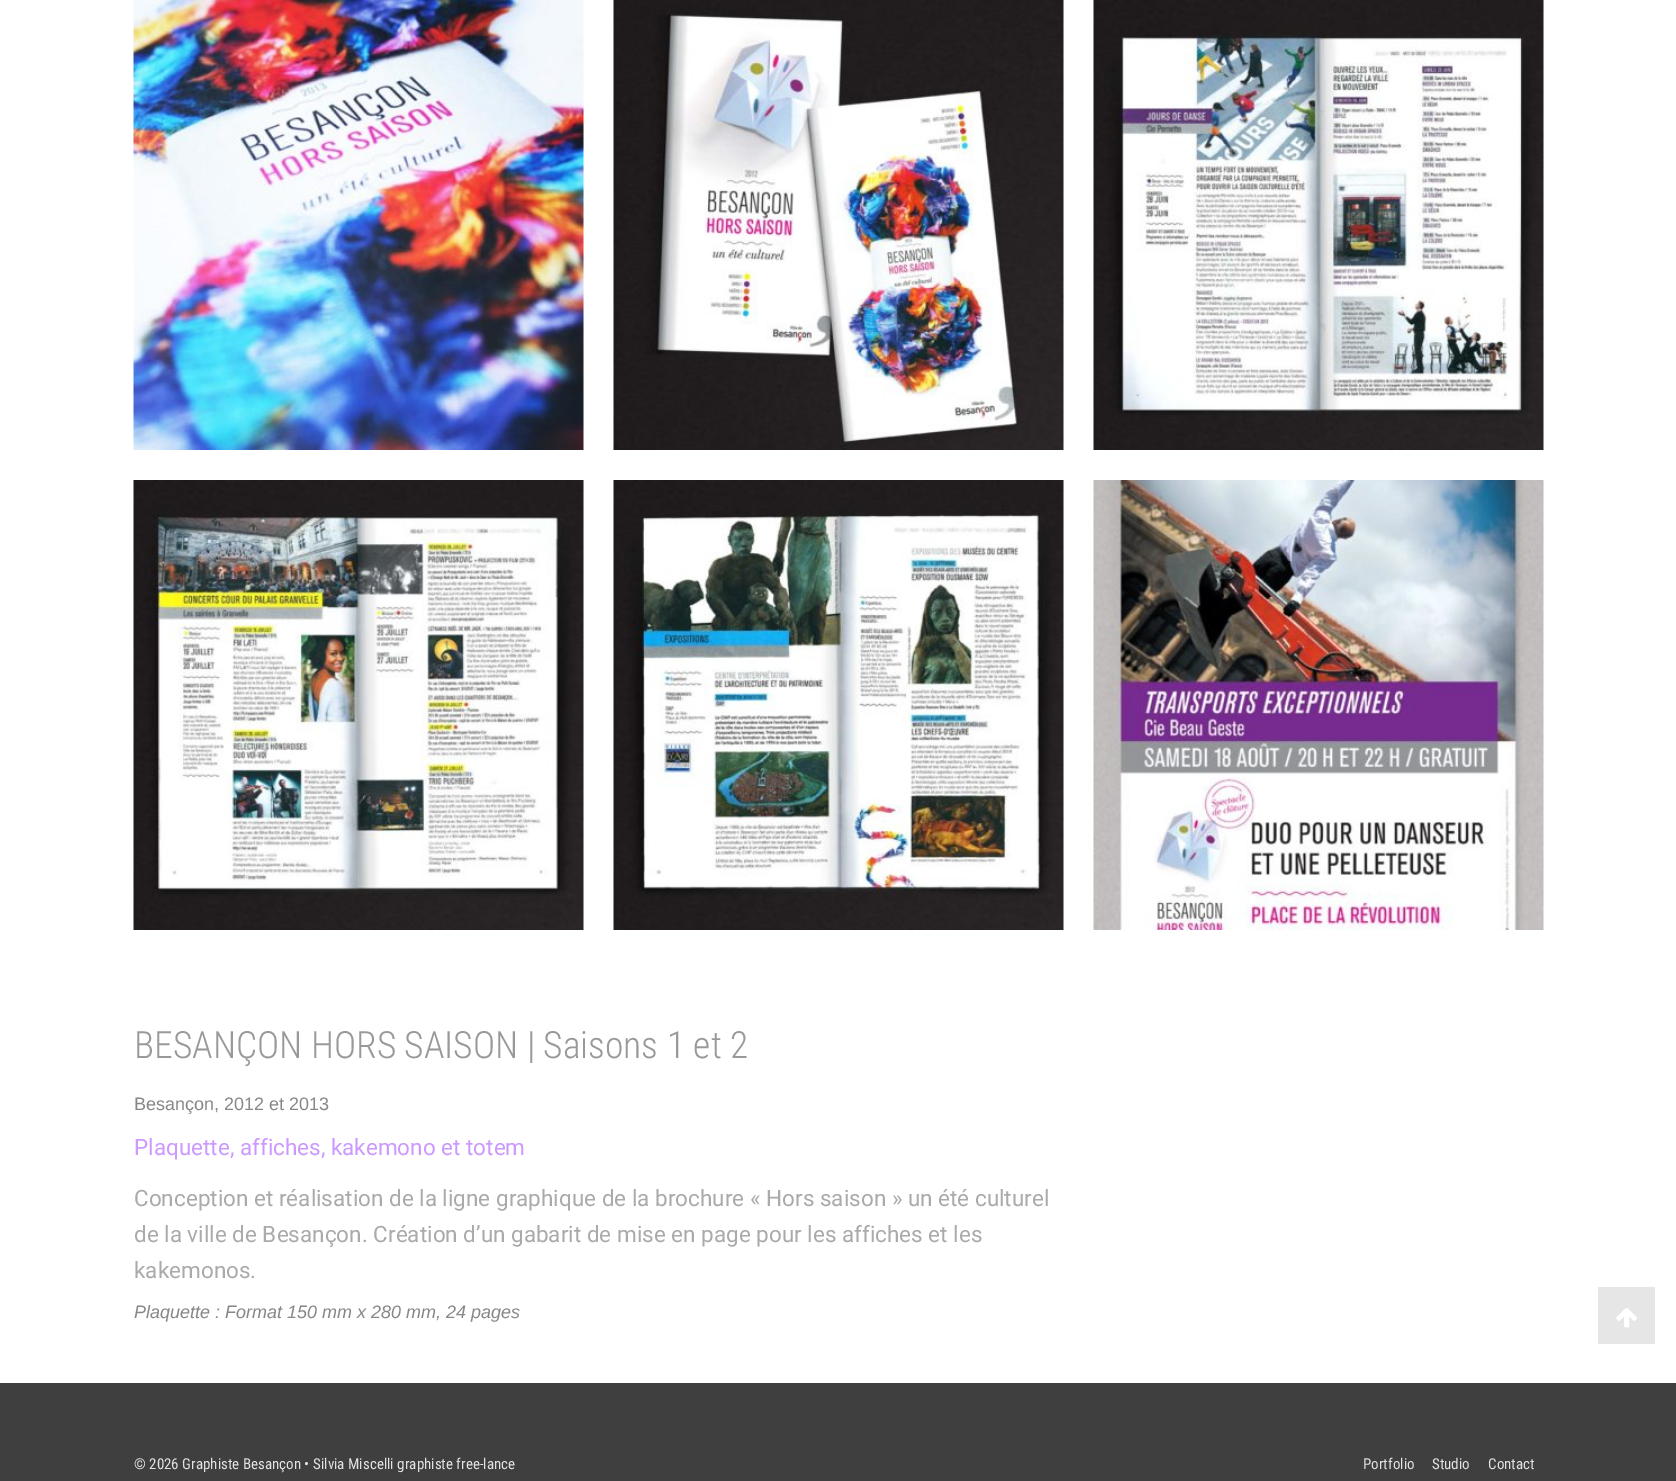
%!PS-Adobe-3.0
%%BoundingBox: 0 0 1676 1481
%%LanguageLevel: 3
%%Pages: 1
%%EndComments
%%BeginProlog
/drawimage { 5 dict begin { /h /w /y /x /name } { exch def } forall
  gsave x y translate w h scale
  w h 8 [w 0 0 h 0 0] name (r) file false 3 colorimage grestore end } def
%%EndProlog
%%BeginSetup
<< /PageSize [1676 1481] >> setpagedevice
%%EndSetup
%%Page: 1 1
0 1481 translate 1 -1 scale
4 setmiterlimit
1 setgray
0 0 1676 1481 rectfill
(images/1.raw) 133 0 451 450 drawimage
(images/2.raw) 613 0 451 450 drawimage
(images/3.raw) 1093 0 451 450 drawimage
(images/4.raw) 133 480 451 450 drawimage
(images/5.raw) 613 480 451 450 drawimage
(images/6.raw) 1093 480 451 450 drawimage
0.247 setgray
0 1383 1676 98 rectfill
0.902 setgray
1598 1287 57 57 rectfill
(images/7.raw) 1616 1308 21 20 drawimage
/RobotoCondensed-Light [37.5 0 0 -37.5 0 0] selectfont
0.6 setgray
134 1058 moveto (BESANÇON HORS SAISON | Saisons 1 et 2) show
/LiberationSans-Regular [18 0 0 -18 0 0] selectfont
0.529 setgray
134 1110 moveto (Besançon, 2012 et 2013) show
/Roboto-Regular [22.5 0 0 -22.5 0 0] selectfont
0.8 0.6 1 setrgbcolor
134 1155 moveto (Plaquette, affiches, kakemono et totem) show
0.667 setgray
134 1206 moveto (Conception et réalisation de la ligne graphique de la brochure « Hors saison » un été culturel) show
134 1242 moveto (de la ville de Besançon. Création d’un gabarit de mise en page pour les affiches et les) show
134 1278 moveto (kakemonos.) show
/LiberationSans-Italic [18 0 0 -18 0 0] selectfont
0.529 setgray
134 1318 moveto (Plaquette : Format 150 mm x 280 mm, 24 pages) show
/RobotoCondensed-Regular [15 0 0 -15 0 0] selectfont
0.886 setgray
134 1469 moveto (© 2026 Graphiste Besançon • Silvia Miscelli graphiste free-lance) show
1363 1469 moveto (Portfolio) show
1432 1469 moveto (Studio) show
1488 1469 moveto (Contact) show
showpage
%%EOF
